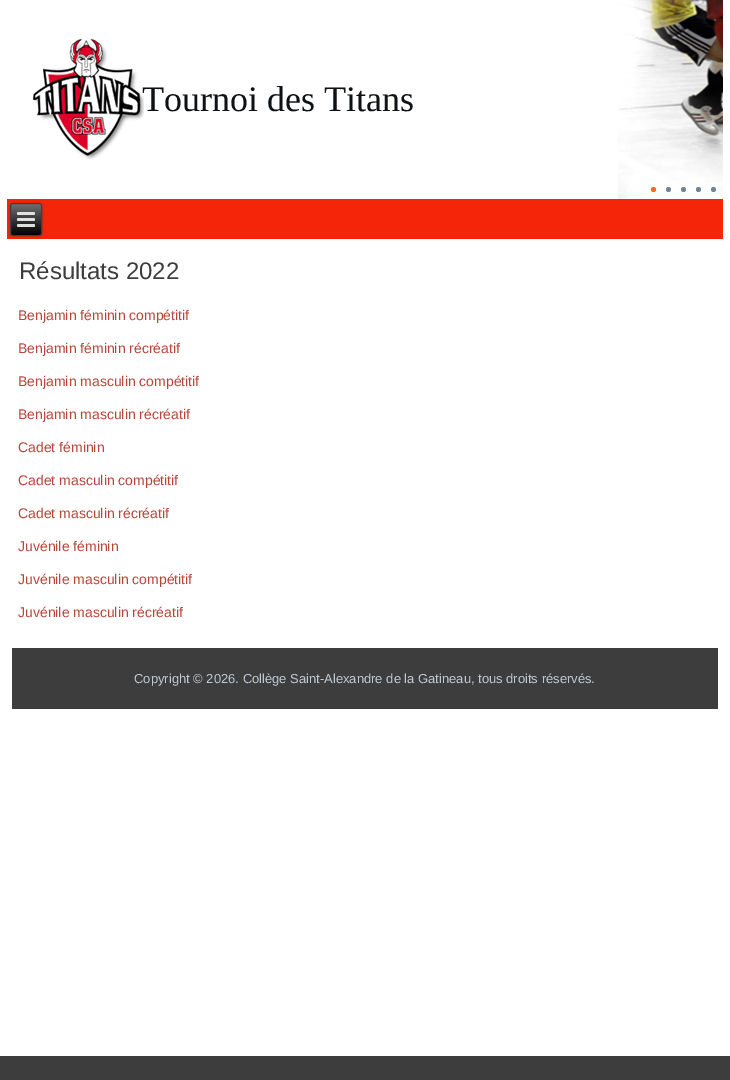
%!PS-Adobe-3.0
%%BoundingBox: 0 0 730 1080
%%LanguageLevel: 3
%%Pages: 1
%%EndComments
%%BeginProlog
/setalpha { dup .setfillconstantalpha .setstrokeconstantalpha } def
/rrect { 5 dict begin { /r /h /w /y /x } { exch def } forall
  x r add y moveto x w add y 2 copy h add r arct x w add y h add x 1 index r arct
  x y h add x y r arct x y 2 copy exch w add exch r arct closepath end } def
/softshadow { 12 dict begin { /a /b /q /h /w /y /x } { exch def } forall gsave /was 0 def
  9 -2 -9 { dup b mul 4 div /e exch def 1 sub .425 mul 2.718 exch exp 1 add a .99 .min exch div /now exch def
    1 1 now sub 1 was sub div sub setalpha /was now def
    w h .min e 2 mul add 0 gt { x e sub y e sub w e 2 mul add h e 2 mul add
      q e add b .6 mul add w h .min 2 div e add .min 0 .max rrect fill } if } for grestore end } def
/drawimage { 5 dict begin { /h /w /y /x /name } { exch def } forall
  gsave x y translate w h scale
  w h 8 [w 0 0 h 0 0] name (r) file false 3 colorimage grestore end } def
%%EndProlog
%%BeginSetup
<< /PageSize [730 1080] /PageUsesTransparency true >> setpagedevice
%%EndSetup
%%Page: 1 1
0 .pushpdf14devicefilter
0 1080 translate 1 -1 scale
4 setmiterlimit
0.239 setgray
0 0 730 1080 rectfill
1 setgray
0 0 730 1056 rectfill
0.871 0.184 0.106 setrgbcolor
7 199 716 1 rectfill
(images/1.raw) 32 0 691 199 drawimage
0.98 0.408 0.118 setrgbcolor
newpath 653.5 189.5 2.5 0 360 arc closepath fill
0.447 0.522 0.592 setrgbcolor
newpath 668.5 189.5 2.5 0 360 arc closepath fill
newpath 683.5 189.5 2.5 0 360 arc closepath fill
newpath 698.5 189.5 2.5 0 360 arc closepath fill
newpath 713.5 189.5 2.5 0 360 arc closepath fill
0.961 0.145 0.039 setrgbcolor
7 200 716 39 rectfill
0 setgray
10 203 32 33 3 1.5 0.2 softshadow
gsave
10 203 32 33 3 rrect clip newpath
gsave newpath 10 204 moveto 42 204 lineto 42 235 lineto 10 235 lineto closepath clip newpath
<< /ShadingType 2 /ColorSpace /DeviceRGB /Coords [26 204 26 235] /Extend [true true] /Function << /FunctionType 2 /Domain [0 1] /C0 [0.439 0.439 0.439] /C1 [0 0 0] /N 1 >> >> shfill grestore
grestore
0.251 setgray
10.5 203.5 31 32 2.5 rrect stroke
0.878 setgray
17 212 18 3 1.5 rrect fill
17 218 18 3 1.5 rrect fill
17 224 18 3 1.5 rrect fill
0.239 setgray
12 648 706 61 rectfill
/LiberationSerif-Regular [36 0 0 -36 0 0] selectfont
0.059 0.071 0.082 setrgbcolor
142 111 moveto (Tournoi des Titans) show
/LiberationSans-Regular [24 0 0 -24 0 0] selectfont
0.239 setgray
19 279 moveto (Résultats 2022) show
/LiberationSans-Regular [14 0 0 -14 0 0] selectfont
0.718 0.271 0.224 setrgbcolor
18 320 moveto (Benjamin féminin compétitif) show
18 353 moveto (Benjamin féminin récréatif) show
18 386 moveto (Benjamin masculin compétitif) show
18 419 moveto (Benjamin masculin récréatif) show
18 452 moveto (Cadet féminin) show
18 485 moveto (Cadet masculin compétitif) show
18 518 moveto (Cadet masculin récréatif) show
18 551 moveto (Juvénile féminin) show
18 584 moveto (Juvénile masculin compétitif) show
18 617 moveto (Juvénile masculin récréatif) show
/LiberationSans-Regular [13 0 0 -13 0 0] selectfont
0.753 0.788 0.824 setrgbcolor
134 683 moveto (Copyright © 2026. Collège Saint-Alexandre de la Gatineau, tous droits réservés.) show
.poppdf14devicefilter showpage
%%EOF
